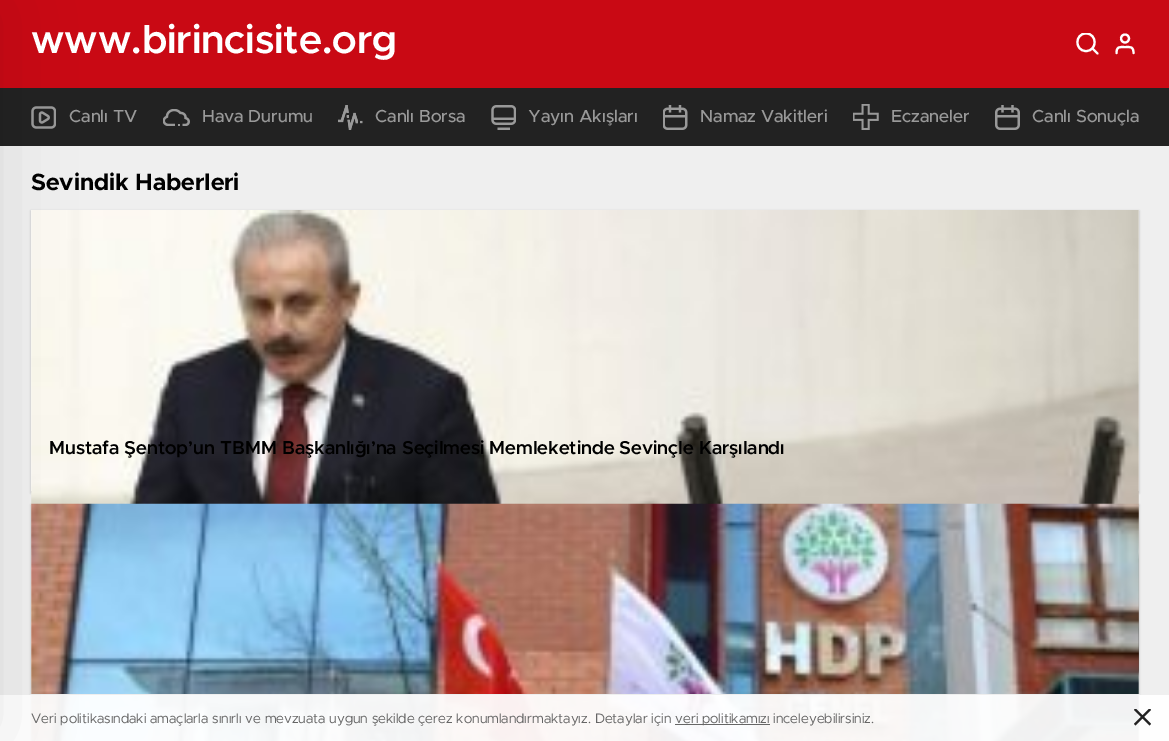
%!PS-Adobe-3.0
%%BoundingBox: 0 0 1169 741
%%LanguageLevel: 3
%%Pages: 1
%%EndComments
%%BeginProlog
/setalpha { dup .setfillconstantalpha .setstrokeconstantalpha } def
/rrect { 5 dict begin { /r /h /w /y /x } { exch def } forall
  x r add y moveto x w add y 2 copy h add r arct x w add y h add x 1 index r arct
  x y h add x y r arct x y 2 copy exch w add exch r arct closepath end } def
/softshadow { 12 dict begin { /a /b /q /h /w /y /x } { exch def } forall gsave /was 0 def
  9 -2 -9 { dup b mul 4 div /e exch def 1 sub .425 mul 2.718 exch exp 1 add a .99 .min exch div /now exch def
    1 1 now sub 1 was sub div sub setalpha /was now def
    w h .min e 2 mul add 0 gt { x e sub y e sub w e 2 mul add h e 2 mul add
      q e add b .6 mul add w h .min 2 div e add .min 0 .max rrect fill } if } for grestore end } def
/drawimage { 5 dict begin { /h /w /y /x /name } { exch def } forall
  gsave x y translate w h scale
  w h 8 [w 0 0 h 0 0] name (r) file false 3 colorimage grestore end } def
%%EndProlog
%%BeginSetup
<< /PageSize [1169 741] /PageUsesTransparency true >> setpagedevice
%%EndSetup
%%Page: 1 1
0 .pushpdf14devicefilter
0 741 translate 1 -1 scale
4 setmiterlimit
0.937 setgray
0 0 1169 741 rectfill
0.788 0.035 0.078 setrgbcolor
0 0 1169 88 rectfill
0.133 setgray
0 88 1169 58 rectfill
(images/1.raw) 31 106 25 23 drawimage
0.067 0.082 0.098 setrgbcolor
31 211 1108 282 0 1 0.27 softshadow
31 505 1108 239 0 1 0.27 softshadow
(images/8.raw) 31 210 1108 531 drawimage
(images/9.raw) 31 503 1108 238 drawimage
0.94 setalpha
1 setgray
0 695 1169 46 rectfill
1 setalpha
0.933 setgray
30 694 1110 1 rectfill
0 setgray
-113 6 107 729 0 37.5 0.1 softshadow
gsave
1076 33 23 22 rectclip
1 setgray
2.1 setlinewidth
1 setlinecap
1 setlinejoin
newpath 1086 51 moveto 1097.5 51 1097.5 33.5 1086 33.5 curveto 1074.5 33.5 1074.5 51 1086 51 curveto closepath stroke
grestore
1 setgray
2.1 setlinewidth
1 setlinecap
1 setlinejoin
newpath 1092.5 48.5 moveto 1097.5 53.5 lineto 1133.5 53 moveto 1133.5 46.5 1131 47 1125 47 curveto 1119 47 1116.5 46.5 1116.5 53 curveto stroke
0 setlinecap
0 setlinejoin
newpath 1125 38.5 4 0 360 arc closepath stroke
(images/2.raw) 163 109 27 17 drawimage
(images/3.raw) 338 105 25 25 drawimage
(images/4.raw) 491 105 25 25 drawimage
(images/5.raw) 663 105 25 25 drawimage
(images/6.raw) 853 104 26 26 drawimage
(images/7.raw) 995 105 25 25 drawimage
0.4 setgray
675 724 95 1 rectfill
(images/10.raw) 1134 709 17 17 drawimage
/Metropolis-SemiBold [40 0 0 -40 0 0] selectfont
1 setgray
31 53 moveto (www.birincisite.org) show
/Metropolis-Medium [17.5 0 0 -17.5 0 0] selectfont
0.6 setgray
69 122 moveto (Canlı TV) show
202 122 moveto (Hava Durumu) show
375 122 moveto (Canlı Borsa) show
528 122 moveto (Yayın Akışları) show
700 122 moveto (Namaz Vakitleri) show
891 122 moveto (Eczaneler) show
1032 122 moveto (Canlı Sonuçla) show
/Metropolis-Bold [23.5 0 0 -23.5 0 0] selectfont
0 setgray
31 190 moveto (Sevindik Haberleri) show
/Metropolis-SemiBold [18.75 0 0 -18.75 0 0] selectfont
49 454 moveto (Mustafa Şentop’un TBMM Başkanlığı’na Seçilmesi Memleketinde Sevinçle Karşılandı) show
/Metropolis-Regular [13.75 0 0 -13.75 0 0] selectfont
0.4 setgray
31 723 moveto (Veri politikasındaki amaçlarla sınırlı ve mevzuata uygun şekilde çerez konumlandırmaktayız. Detaylar için) show
675 723 moveto (veri politikamızı inceleyebilirsiniz.) show
.poppdf14devicefilter showpage
%%EOF
